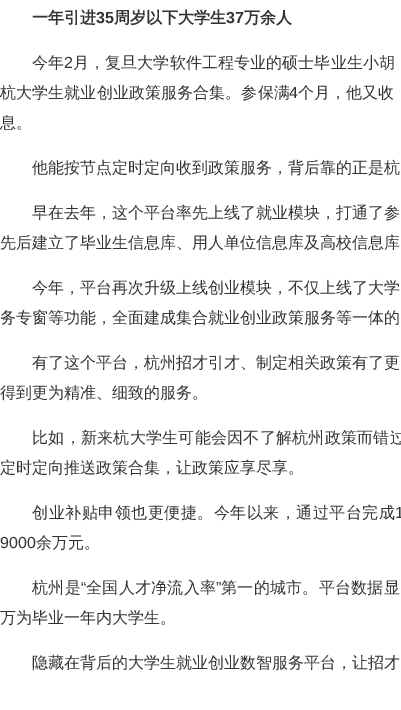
%!PS-Adobe-3.0
%%BoundingBox: 0 0 401 710
%%LanguageLevel: 3
%%Pages: 1
%%EndComments
%%BeginProlog
%%EndProlog
%%BeginSetup
<< /PageSize [401 710] >> setpagedevice
%%EndSetup
%%Page: 1 1
0 710 translate 1 -1 scale
4 setmiterlimit
1 setgray
0 0 401 710 rectfill
/WenQuanYiZenHei-Bold [16 0 0 -16 0 0] selectfont
0.2 setgray
32 23 moveto (一年引进) show
/LiberationSans-Bold [16 0 0 -16 0 0] selectfont
96 23 moveto (35) show
/WenQuanYiZenHei-Bold [16 0 0 -16 0 0] selectfont
114 23 moveto (周岁以下大学生) show
/LiberationSans-Bold [16 0 0 -16 0 0] selectfont
226 23 moveto (37) show
/WenQuanYiZenHei-Bold [16 0 0 -16 0 0] selectfont
244 23 moveto (万余人) show
/WenQuanYiZenHei-Medium [16 0 0 -16 0 0] selectfont
32 68 moveto 0.1 0 (今年) ashow
/LiberationSans-Regular [16 0 0 -16 0 0] selectfont
64 68 moveto 0.1 0 (2) ashow
/WenQuanYiZenHei-Medium [16 0 0 -16 0 0] selectfont
73 68 moveto 0.1 0 (月，复旦大学软件工程专业的硕士毕业生小胡) ashow
0 98 moveto 0.1 0 (杭大学生就业创业政策服务合集。参保满) ashow
/LiberationSans-Regular [16 0 0 -16 0 0] selectfont
289 98 moveto 0.1 0 (4) ashow
/WenQuanYiZenHei-Medium [16 0 0 -16 0 0] selectfont
298 98 moveto 0.1 0 (个月，他又收) ashow
0 128 moveto (息。) show
32 173 moveto (他能按节点定时定向收到政策服务，背后靠的正是杭) show
32 218 moveto (早在去年，这个平台率先上线了就业模块，打通了参) show
0 248 moveto (先后建立了毕业生信息库、用人单位信息库及高校信息库) show
32 293 moveto (今年，平台再次升级上线创业模块，不仅上线了大学) show
0 323 moveto (务专窗等功能，全面建成集合就业创业政策服务等一体的) show
32 368 moveto (有了这个平台，杭州招才引才、制定相关政策有了更) show
0 398 moveto (得到更为精准、细致的服务。) show
32 443 moveto 0.25 0 (比如，新来杭大学生可能会因不了解杭州政策而错过) ashow
0 473 moveto (定时定向推送政策合集，让政策应享尽享。) show
32 518 moveto 0.5 0 (创业补贴申领也更便捷。今年以来，通过平台完成) ashow
/LiberationSans-Regular [16 0 0 -16 0 0] selectfont
395 518 moveto 0.5 0 (1) ashow
0 548 moveto (9000) show
/WenQuanYiZenHei-Medium [16 0 0 -16 0 0] selectfont
36 548 moveto (余万元。) show
32 593 moveto 0.25 0 (杭州是) ashow
/LiberationSans-Regular [16 0 0 -16 0 0] selectfont
81 593 moveto 0.25 0 (“) ashow
/WenQuanYiZenHei-Medium [16 0 0 -16 0 0] selectfont
86 593 moveto 0.25 0 (全国人才净流入率) ashow
/LiberationSans-Regular [16 0 0 -16 0 0] selectfont
216 593 moveto 0.25 0 (”) ashow
/WenQuanYiZenHei-Medium [16 0 0 -16 0 0] selectfont
221 593 moveto 0.25 0 (第一的城市。平台数据显) ashow
0 623 moveto (万为毕业一年内大学生。) show
32 668 moveto (隐藏在背后的大学生就业创业数智服务平台，让招才) show
showpage
%%EOF
